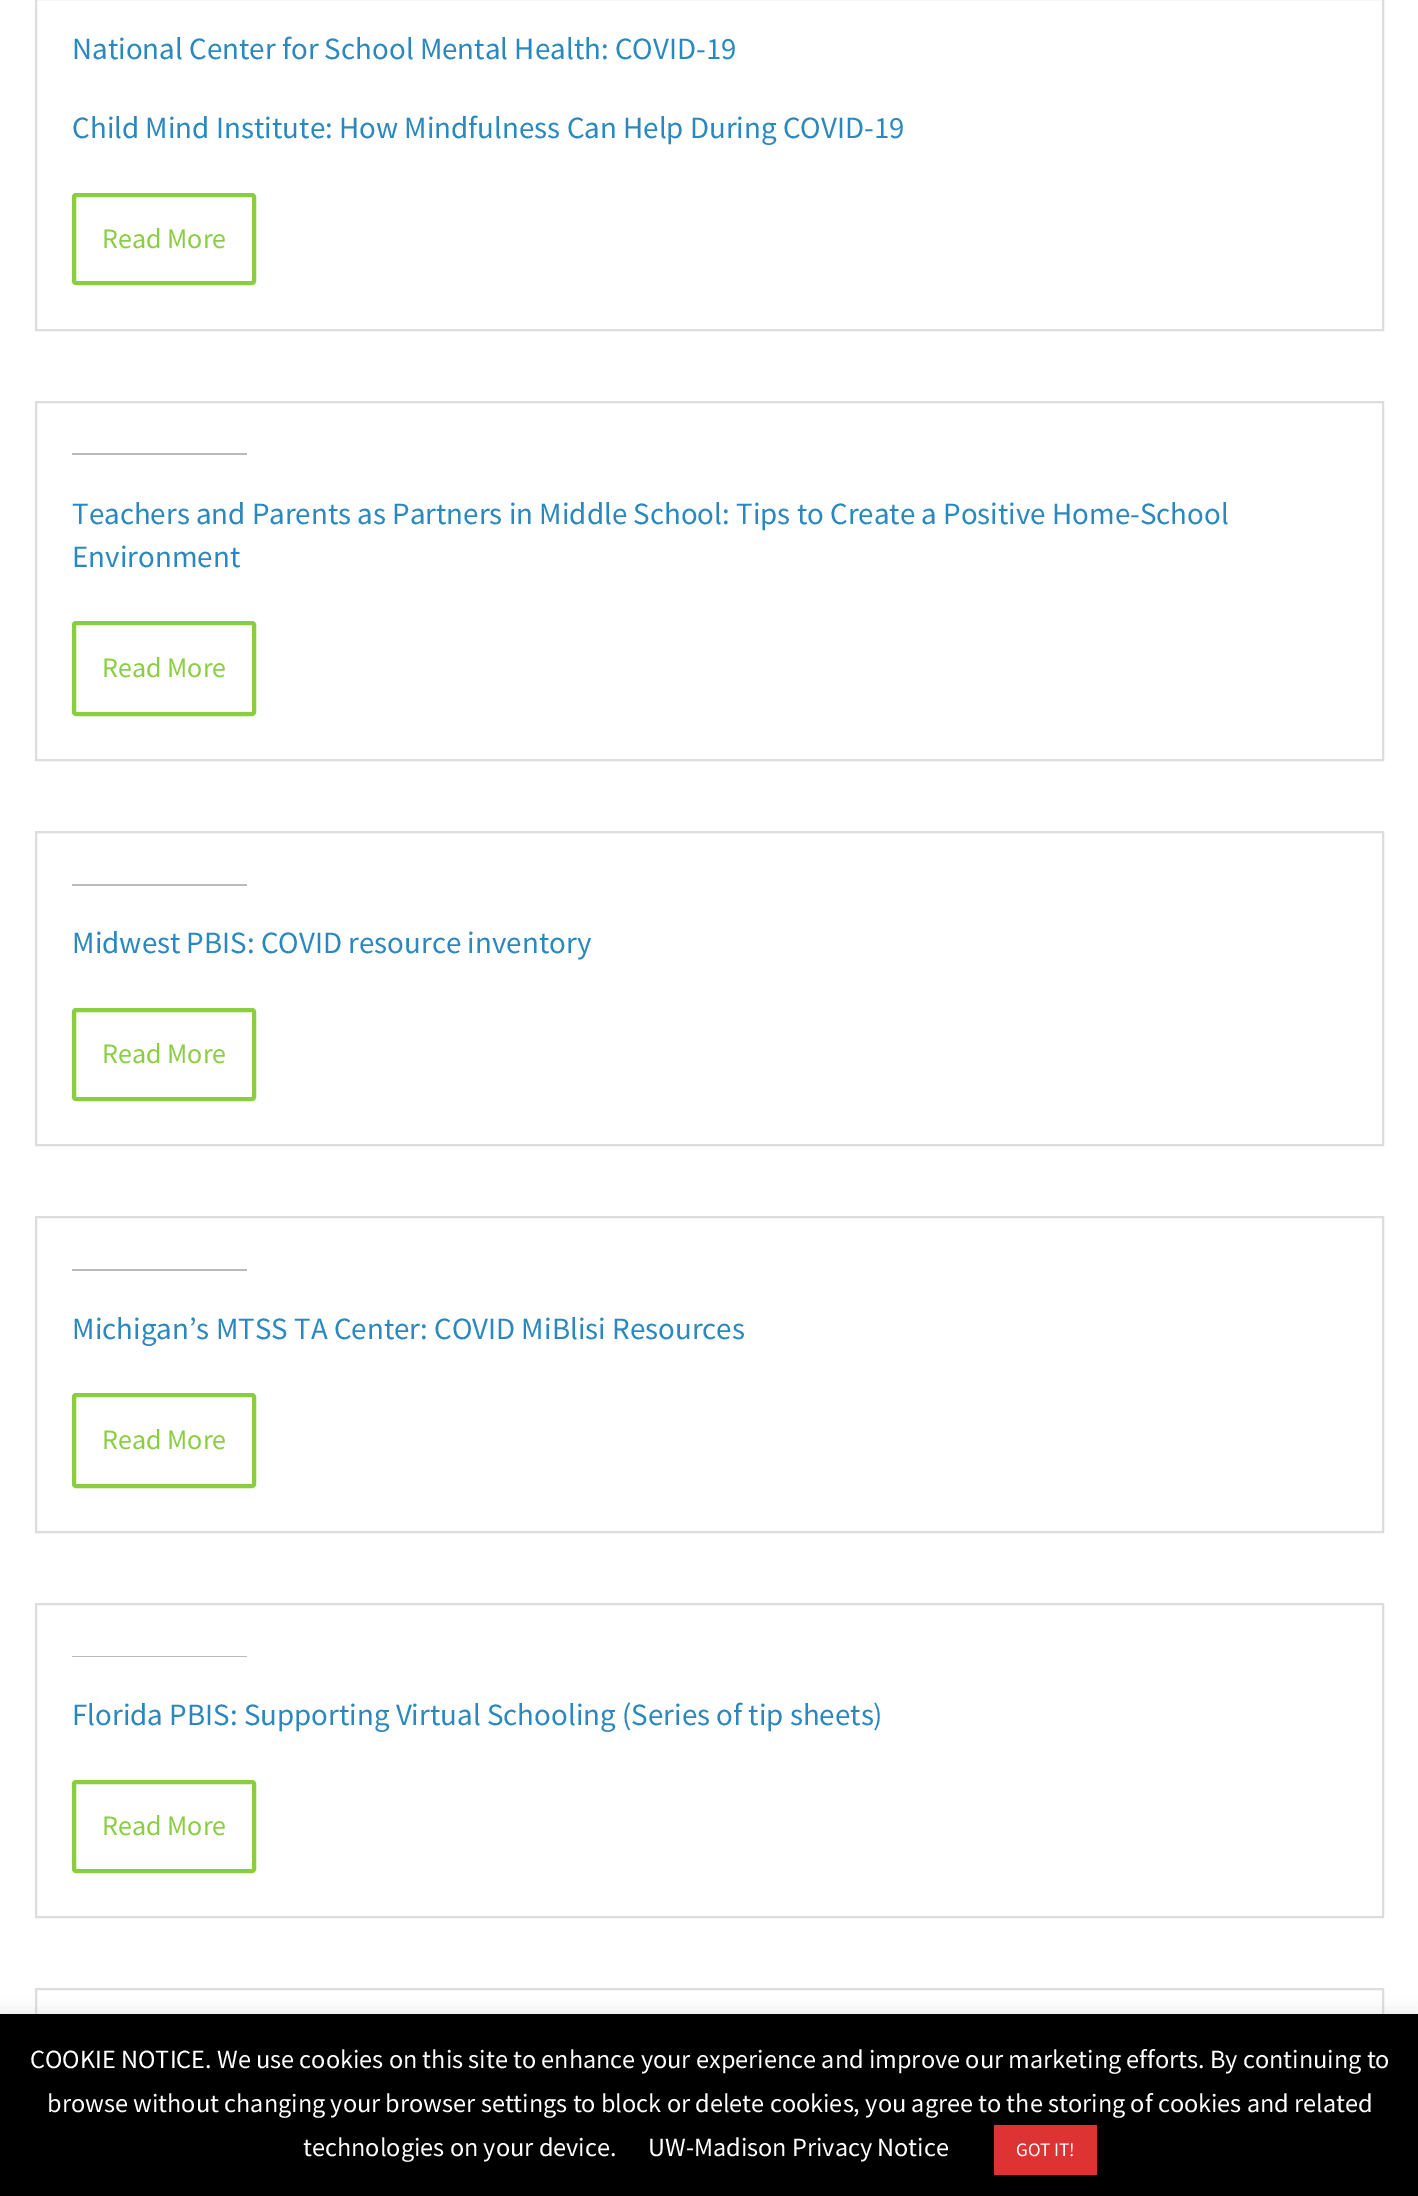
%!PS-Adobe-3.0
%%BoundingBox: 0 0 1418 2196
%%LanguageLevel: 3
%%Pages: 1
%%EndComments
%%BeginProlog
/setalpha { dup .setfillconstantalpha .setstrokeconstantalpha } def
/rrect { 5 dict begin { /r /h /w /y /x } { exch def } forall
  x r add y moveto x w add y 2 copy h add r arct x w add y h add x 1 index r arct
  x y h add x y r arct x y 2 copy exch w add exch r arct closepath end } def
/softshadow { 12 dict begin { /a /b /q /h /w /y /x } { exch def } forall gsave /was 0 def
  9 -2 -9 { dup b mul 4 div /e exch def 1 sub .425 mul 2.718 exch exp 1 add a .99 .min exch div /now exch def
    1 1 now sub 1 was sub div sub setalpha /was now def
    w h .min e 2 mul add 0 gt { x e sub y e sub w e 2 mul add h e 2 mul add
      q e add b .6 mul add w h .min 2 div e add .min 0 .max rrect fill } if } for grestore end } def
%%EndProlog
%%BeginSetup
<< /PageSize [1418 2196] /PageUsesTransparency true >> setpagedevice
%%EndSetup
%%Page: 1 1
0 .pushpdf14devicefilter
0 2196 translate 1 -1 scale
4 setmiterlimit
1 setgray
0 0 1418 2196 rectfill
0.867 setgray
2 setlinewidth
36 -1 1347 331 rectstroke
0.537 0.808 0.251 setrgbcolor
4 setlinewidth
74 195 180 88 2 rrect stroke
0.867 setgray
2 setlinewidth
36 402 1347 358 rectstroke
0.733 setgray
72 453 175 2 rectfill
0.537 0.808 0.251 setrgbcolor
4 setlinewidth
74 623 180 91 2 rrect stroke
0.867 setgray
2 setlinewidth
36 832 1347 313 rectstroke
0.733 setgray
72 884 175 2 rectfill
0.537 0.808 0.251 setrgbcolor
4 setlinewidth
74 1010 180 89 2 rrect stroke
0.867 setgray
2 setlinewidth
36 1217 1347 315 rectstroke
0.733 setgray
72 1269 175 2 rectfill
0.537 0.808 0.251 setrgbcolor
4 setlinewidth
74 1395 180 91 2 rrect stroke
0.867 setgray
2 setlinewidth
36 1604 1347 313 rectstroke
0.733 setgray
72 1656 175 1 rectfill
0.537 0.808 0.251 setrgbcolor
4 setlinewidth
74 1782 180 89 2 rrect stroke
0.867 setgray
2 setlinewidth
36 1989 1347 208 rectstroke
0.675 0.671 0.671 setrgbcolor
0 2013 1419 182 0 9 0.3 softshadow
0 setgray
0 2014 1418 182 rectfill
0.867 0.2 0.2 setrgbcolor
994 2125 103 50 rectfill
/SourceSansPro-Regular [30.95 0 0 -30.95 0 0] selectfont
0.165 0.533 0.749 setrgbcolor
72 59 moveto (National Center for School Mental Health: COVID-19) show
72 138 moveto (Child Mind Institute: How Mindfulness Can Help During COVID-19) show
/SourceSansPro-Regular [28 0 0 -28 0 0] selectfont
0.537 0.808 0.251 setrgbcolor
102 248 moveto (Read More) show
/SourceSansPro-Regular [30.95 0 0 -30.95 0 0] selectfont
0.165 0.533 0.749 setrgbcolor
72 524 moveto (Teachers and Parents as Partners in Middle School: Tips to Create a Positive Home-School) show
72 567 moveto (Environment) show
/SourceSansPro-Regular [28 0 0 -28 0 0] selectfont
0.537 0.808 0.251 setrgbcolor
102 677 moveto (Read More) show
/SourceSansPro-Regular [30.95 0 0 -30.95 0 0] selectfont
0.165 0.533 0.749 setrgbcolor
72 953 moveto (Midwest PBIS: COVID resource inventory) show
/SourceSansPro-Regular [28 0 0 -28 0 0] selectfont
0.537 0.808 0.251 setrgbcolor
102 1063 moveto (Read More) show
/SourceSansPro-Regular [30.95 0 0 -30.95 0 0] selectfont
0.165 0.533 0.749 setrgbcolor
72 1339 moveto (Michigan’s MTSS TA Center: COVID MiBlisi Resources) show
/SourceSansPro-Regular [28 0 0 -28 0 0] selectfont
0.537 0.808 0.251 setrgbcolor
102 1449 moveto (Read More) show
/SourceSansPro-Regular [30.95 0 0 -30.95 0 0] selectfont
0.165 0.533 0.749 setrgbcolor
72 1725 moveto (Florida PBIS: Supporting Virtual Schooling \(Series of tip sheets\)) show
/SourceSansPro-Regular [28 0 0 -28 0 0] selectfont
0.537 0.808 0.251 setrgbcolor
102 1835 moveto (Read More) show
/SourceSansPro-Regular [26.25 0 0 -26.25 0 0] selectfont
1 setgray
30 2068 moveto (COOKIE NOTICE. We use cookies on this site to enhance your experience and improve our marketing efforts. By continuing to) show
47 2112 moveto (browse without changing your browser settings to block or delete cookies, you agree to the storing of cookies and related) show
303 2156 moveto (technologies on your device.) show
648 2156 moveto (UW-Madison Privacy Notice) show
/SourceSansPro-Regular [19 0 0 -19 0 0] selectfont
1016 2156 moveto (GOT IT!) show
.poppdf14devicefilter showpage
%%EOF
